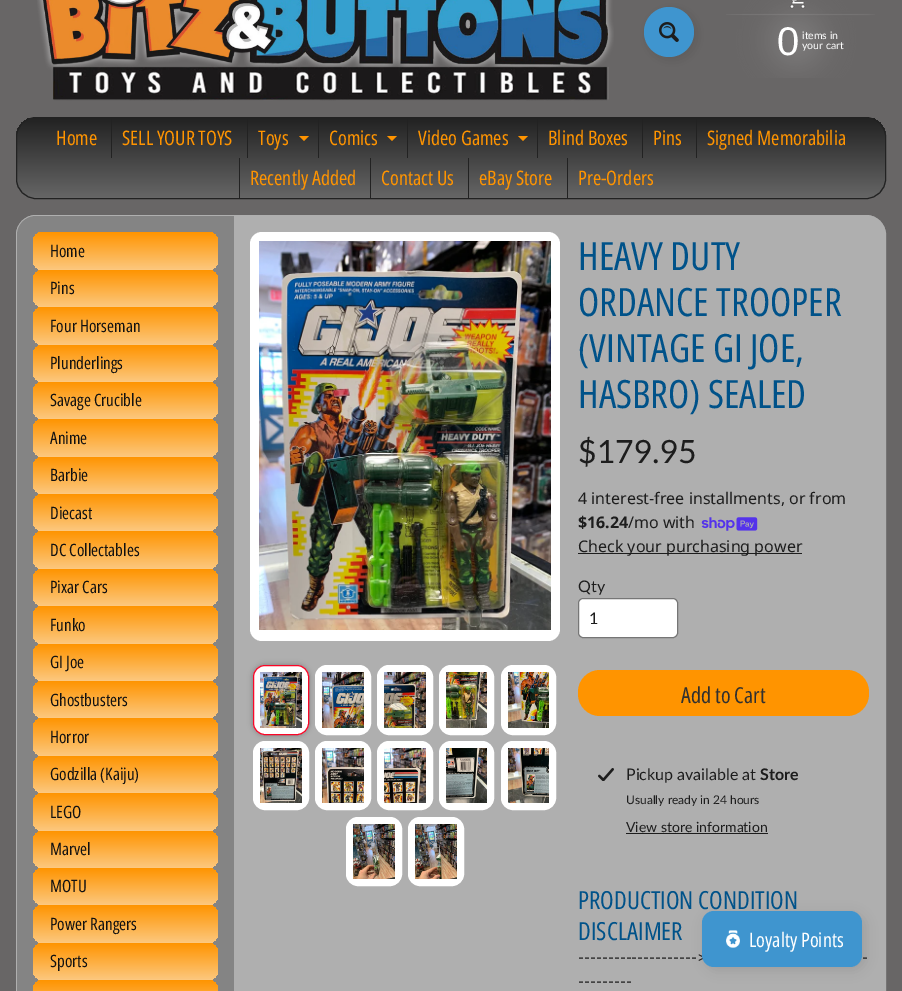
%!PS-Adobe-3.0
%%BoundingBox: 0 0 902 991
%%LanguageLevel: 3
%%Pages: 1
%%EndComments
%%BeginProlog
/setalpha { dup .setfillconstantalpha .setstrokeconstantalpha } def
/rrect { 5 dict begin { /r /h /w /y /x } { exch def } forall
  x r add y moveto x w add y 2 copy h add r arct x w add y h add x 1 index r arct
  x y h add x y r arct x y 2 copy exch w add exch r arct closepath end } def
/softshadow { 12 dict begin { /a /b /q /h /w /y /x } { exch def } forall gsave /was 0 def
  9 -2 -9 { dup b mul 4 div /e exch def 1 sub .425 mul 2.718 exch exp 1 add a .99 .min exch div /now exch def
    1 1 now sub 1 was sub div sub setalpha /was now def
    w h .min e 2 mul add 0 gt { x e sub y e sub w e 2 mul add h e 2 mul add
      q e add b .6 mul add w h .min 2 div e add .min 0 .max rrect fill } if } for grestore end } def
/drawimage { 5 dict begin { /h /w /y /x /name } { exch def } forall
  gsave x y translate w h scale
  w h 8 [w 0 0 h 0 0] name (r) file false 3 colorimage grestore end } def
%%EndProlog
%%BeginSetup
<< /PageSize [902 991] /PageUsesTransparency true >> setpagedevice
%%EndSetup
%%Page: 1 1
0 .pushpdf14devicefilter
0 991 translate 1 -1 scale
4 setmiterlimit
0.408 0.4 0.4 setrgbcolor
0 0 902 991 rectfill
(images/1.raw) 37 0 577 101 drawimage
0 setgray
647 10 50 50 25 6 0.1 softshadow
0.247 0.584 0.812 setrgbcolor
newpath 669 32 25 0 360 arc closepath fill
(images/2.raw) 659 22 20 20 drawimage
(images/3.raw) 726 0 149 78 drawimage
gsave
16 117 870 82 20 rrect clip newpath
gsave newpath 16 118 moveto 886 118 lineto 886 198 lineto 16 198 lineto closepath clip newpath
<< /ShadingType 2 /ColorSpace /DeviceRGB /Coords [451 118 451 198] /Extend [true true] /Function << /FunctionType 2 /Domain [0 1] /C0 [0.133 0.133 0.133] /C1 [0.4 0.4 0.4] /N 1 >> >> shfill grestore
grestore
0.133 setgray
16.5 117.5 869 81 19.5 rrect stroke
111 118 1 40 rectfill
247 118 1 40 rectfill
1 0.58 0 setrgbcolor
newpath 299 136 moveto 309 136 lineto 304 141 lineto closepath fill
0.133 setgray
318 118 1 40 rectfill
1 0.58 0 setrgbcolor
newpath 387 136 moveto 397 136 lineto 392 141 lineto closepath fill
0.133 setgray
407 118 1 40 rectfill
1 0.58 0 setrgbcolor
newpath 518 136 moveto 528 136 lineto 523 141 lineto closepath fill
0.133 setgray
537 118 1 40 rectfill
642 118 1 40 rectfill
696 118 1 40 rectfill
239 158 1 40 rectfill
370 158 1 40 rectfill
468 158 1 40 rectfill
567 158 1 40 rectfill
0.686 setgray
16 215 870 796 20 rrect fill
0.7 setalpha
16.5 215.5 869 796 19.5 rrect stroke
1 setalpha
0.518 setgray
newpath 36 216 moveto 234 216 lineto 234 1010 lineto 36 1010 lineto 25.5 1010 17 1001.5 17 991 curveto 17 235 lineto 17 224.5 25.5 216 36 216 curveto closepath fill
gsave 33 232 185 38 10 rrect clip newpath
<< /ShadingType 2 /ColorSpace /DeviceRGB /Coords [126 232 126 270] /Extend [true true] /Function << /FunctionType 2 /Domain [0 1] /C0 [1 0.58 0] /C1 [0.988 0.784 0.498] /N 1 >> >> shfill grestore
gsave 33 270 185 37 10 rrect clip newpath
<< /ShadingType 2 /ColorSpace /DeviceRGB /Coords [126 270 126 307] /Extend [true true] /Function << /FunctionType 2 /Domain [0 1] /C0 [1 0.58 0] /C1 [0.988 0.784 0.498] /N 1 >> >> shfill grestore
gsave 33 307 185 38 10 rrect clip newpath
<< /ShadingType 2 /ColorSpace /DeviceRGB /Coords [126 307 126 345] /Extend [true true] /Function << /FunctionType 2 /Domain [0 1] /C0 [1 0.58 0] /C1 [0.988 0.784 0.498] /N 1 >> >> shfill grestore
gsave 33 345 185 37 10 rrect clip newpath
<< /ShadingType 2 /ColorSpace /DeviceRGB /Coords [126 345 126 382] /Extend [true true] /Function << /FunctionType 2 /Domain [0 1] /C0 [1 0.58 0] /C1 [0.988 0.784 0.498] /N 1 >> >> shfill grestore
gsave 33 382 185 37 10 rrect clip newpath
<< /ShadingType 2 /ColorSpace /DeviceRGB /Coords [126 382 126 419] /Extend [true true] /Function << /FunctionType 2 /Domain [0 1] /C0 [1 0.58 0] /C1 [0.988 0.784 0.498] /N 1 >> >> shfill grestore
gsave 33 419 185 38 10 rrect clip newpath
<< /ShadingType 2 /ColorSpace /DeviceRGB /Coords [126 419 126 457] /Extend [true true] /Function << /FunctionType 2 /Domain [0 1] /C0 [1 0.58 0] /C1 [0.988 0.784 0.498] /N 1 >> >> shfill grestore
gsave 33 457 185 37 10 rrect clip newpath
<< /ShadingType 2 /ColorSpace /DeviceRGB /Coords [126 457 126 494] /Extend [true true] /Function << /FunctionType 2 /Domain [0 1] /C0 [1 0.58 0] /C1 [0.988 0.784 0.498] /N 1 >> >> shfill grestore
gsave 33 494 185 37 10 rrect clip newpath
<< /ShadingType 2 /ColorSpace /DeviceRGB /Coords [126 494 126 531] /Extend [true true] /Function << /FunctionType 2 /Domain [0 1] /C0 [1 0.58 0] /C1 [0.988 0.784 0.498] /N 1 >> >> shfill grestore
gsave 33 531 185 38 10 rrect clip newpath
<< /ShadingType 2 /ColorSpace /DeviceRGB /Coords [126 531 126 569] /Extend [true true] /Function << /FunctionType 2 /Domain [0 1] /C0 [1 0.58 0] /C1 [0.988 0.784 0.498] /N 1 >> >> shfill grestore
gsave 33 569 185 37 10 rrect clip newpath
<< /ShadingType 2 /ColorSpace /DeviceRGB /Coords [126 569 126 606] /Extend [true true] /Function << /FunctionType 2 /Domain [0 1] /C0 [1 0.58 0] /C1 [0.988 0.784 0.498] /N 1 >> >> shfill grestore
gsave 33 606 185 38 10 rrect clip newpath
<< /ShadingType 2 /ColorSpace /DeviceRGB /Coords [126 606 126 644] /Extend [true true] /Function << /FunctionType 2 /Domain [0 1] /C0 [1 0.58 0] /C1 [0.988 0.784 0.498] /N 1 >> >> shfill grestore
gsave 33 644 185 37 10 rrect clip newpath
<< /ShadingType 2 /ColorSpace /DeviceRGB /Coords [126 644 126 681] /Extend [true true] /Function << /FunctionType 2 /Domain [0 1] /C0 [1 0.58 0] /C1 [0.988 0.784 0.498] /N 1 >> >> shfill grestore
gsave 33 681 185 37 10 rrect clip newpath
<< /ShadingType 2 /ColorSpace /DeviceRGB /Coords [126 681 126 718] /Extend [true true] /Function << /FunctionType 2 /Domain [0 1] /C0 [1 0.58 0] /C1 [0.988 0.784 0.498] /N 1 >> >> shfill grestore
gsave 33 718 185 38 10 rrect clip newpath
<< /ShadingType 2 /ColorSpace /DeviceRGB /Coords [126 718 126 756] /Extend [true true] /Function << /FunctionType 2 /Domain [0 1] /C0 [1 0.58 0] /C1 [0.988 0.784 0.498] /N 1 >> >> shfill grestore
gsave 33 756 185 37 10 rrect clip newpath
<< /ShadingType 2 /ColorSpace /DeviceRGB /Coords [126 756 126 793] /Extend [true true] /Function << /FunctionType 2 /Domain [0 1] /C0 [1 0.58 0] /C1 [0.988 0.784 0.498] /N 1 >> >> shfill grestore
gsave 33 793 185 38 10 rrect clip newpath
<< /ShadingType 2 /ColorSpace /DeviceRGB /Coords [126 793 126 831] /Extend [true true] /Function << /FunctionType 2 /Domain [0 1] /C0 [1 0.58 0] /C1 [0.988 0.784 0.498] /N 1 >> >> shfill grestore
gsave 33 831 185 37 10 rrect clip newpath
<< /ShadingType 2 /ColorSpace /DeviceRGB /Coords [126 831 126 868] /Extend [true true] /Function << /FunctionType 2 /Domain [0 1] /C0 [1 0.58 0] /C1 [0.988 0.784 0.498] /N 1 >> >> shfill grestore
gsave 33 868 185 37 10 rrect clip newpath
<< /ShadingType 2 /ColorSpace /DeviceRGB /Coords [126 868 126 905] /Extend [true true] /Function << /FunctionType 2 /Domain [0 1] /C0 [1 0.58 0] /C1 [0.988 0.784 0.498] /N 1 >> >> shfill grestore
gsave 33 905 185 38 10 rrect clip newpath
<< /ShadingType 2 /ColorSpace /DeviceRGB /Coords [126 905 126 943] /Extend [true true] /Function << /FunctionType 2 /Domain [0 1] /C0 [1 0.58 0] /C1 [0.988 0.784 0.498] /N 1 >> >> shfill grestore
gsave 33 943 185 37 10 rrect clip newpath
<< /ShadingType 2 /ColorSpace /DeviceRGB /Coords [126 943 126 980] /Extend [true true] /Function << /FunctionType 2 /Domain [0 1] /C0 [1 0.58 0] /C1 [0.988 0.784 0.498] /N 1 >> >> shfill grestore
gsave 33 980 185 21 10 rrect clip newpath
<< /ShadingType 2 /ColorSpace /DeviceRGB /Coords [126 980 126 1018] /Extend [true true] /Function << /FunctionType 2 /Domain [0 1] /C0 [1 0.58 0] /C1 [0.988 0.784 0.498] /N 1 >> >> shfill grestore
1 setgray
250 232 310 409 12 rrect fill
(images/4.raw) 259 241 292 389 drawimage
0 setgray
253 665 56 70 12 3 0.3 softshadow
1 setgray
253.5 665.5 55 69 11.5 rrect gsave fill grestore
0.98 0.024 0.153 setrgbcolor
stroke
(images/5.raw) 260 672 42 56 drawimage
1 setgray
315.5 665.5 55 69 11.5 rrect gsave fill grestore
stroke
(images/6.raw) 322 672 42 56 drawimage
377.5 665.5 55 69 11.5 rrect gsave fill grestore
stroke
(images/7.raw) 384 672 42 56 drawimage
439.5 665.5 54 69 11.5 rrect gsave fill grestore
stroke
(images/8.raw) 446 672 41 56 drawimage
501.5 665.5 54 69 11.5 rrect gsave fill grestore
stroke
(images/9.raw) 508 672 41 56 drawimage
253.5 741.5 55 68 11.5 rrect gsave fill grestore
stroke
(images/10.raw) 260 748 42 55 drawimage
315.5 741.5 55 68 11.5 rrect gsave fill grestore
stroke
(images/11.raw) 322 748 42 55 drawimage
377.5 741.5 55 68 11.5 rrect gsave fill grestore
stroke
(images/12.raw) 384 748 42 55 drawimage
439.5 741.5 54 68 11.5 rrect gsave fill grestore
stroke
(images/13.raw) 446 748 41 55 drawimage
501.5 741.5 54 68 11.5 rrect gsave fill grestore
stroke
(images/14.raw) 508 748 41 55 drawimage
346.5 817.5 55 68 11.5 rrect gsave fill grestore
stroke
(images/15.raw) 353 824 42 55 drawimage
408.5 817.5 55 68 11.5 rrect gsave fill grestore
stroke
(images/16.raw) 415 824 42 55 drawimage
(images/17.raw) 701 517 57 14 drawimage
0.114 setgray
578 553 224 1 rectfill
1 setgray
578.5 598.5 99 39 4.5 rrect gsave fill grestore
0.463 setgray
stroke
1 0.58 0 setrgbcolor
578 670 291 46 22 rrect fill
(images/18.raw) 598 768 16 13 drawimage
0.114 setgray
626 833 142 1 rectfill
0 setgray
705 914 160 56 12 6 0.1 softshadow
/LiberationSans-Regular [40 0 0 -40 0 0] selectfont
1 setgray
777 55 moveto (0) show
/Lato-Regular [10.5 0 0 -10.5 0 0] selectfont
802 39 moveto (items in) show
802 49 moveto (your cart) show
/OpenSansCondensed-Regular [20 0 0 -20 0 0] selectfont
1 0.58 0 setrgbcolor
56 145 moveto (Home) show
122 145 moveto (SELL YOUR TOYS) show
258 145 moveto (Toys) show
329 145 moveto (Comics) show
418 145 moveto (Video Games) show
548 145 moveto (Blind Boxes) show
653 145 moveto (Pins) show
707 145 moveto (Signed Memorabilia) show
250 185 moveto (Recently Added) show
381 185 moveto (Contact Us) show
479 185 moveto (eBay Store) show
578 185 moveto (Pre-Orders) show
/OpenSansCondensed-Regular [17 0 0 -17 0 0] selectfont
0.067 setgray
50 257 moveto (Home) show
50 294 moveto (Pins) show
50 332 moveto (Four Horseman) show
50 369 moveto (Plunderlings) show
50 406 moveto (Savage Crucible) show
50 444 moveto (Anime) show
50 481 moveto (Barbie) show
50 519 moveto (Diecast) show
50 556 moveto (DC Collectables) show
50 593 moveto (Pixar Cars) show
50 631 moveto (Funko) show
50 668 moveto (GI Joe) show
50 706 moveto (Ghostbusters) show
50 743 moveto (Horror) show
50 780 moveto (Godzilla \(Kaiju\)) show
50 818 moveto (LEGO) show
50 855 moveto (Marvel) show
50 892 moveto (MOTU) show
50 930 moveto (Power Rangers) show
50 967 moveto (Sports) show
/OpenSansCondensed-Regular [39 0 0 -39 0 0] selectfont
0 0.322 0.537 setrgbcolor
578 270 moveto (HEAVY DUTY) show
578 316 moveto (ORDANCE TROOPER) show
578 362 moveto (\(VINTAGE GI JOE,) show
578 408 moveto (HASBRO\) SEALED) show
/Lato-Regular [32 0 0 -32 0 0] selectfont
0.114 setgray
578 463 moveto ($179.95) show
/NotoSans-Regular [16 0 0 -16 0 0] selectfont
578 504 moveto (4 interest-free installments, or from) show
/NotoSans-Bold [16 0 0 -16 0 0] selectfont
578 528 moveto ($16.24) show
/NotoSans-Regular [16 0 0 -16 0 0] selectfont
628 528 moveto (/mo with) show
578 552 moveto (Check your purchasing power) show
/Lato-Regular [16 0 0 -16 0 0] selectfont
578 592 moveto (Qty) show
589 624 moveto (1) show
/OpenSansCondensed-Regular [22 0 0 -22 0 0] selectfont
0.188 setgray
681 703 moveto (Add to Cart) show
/Lato-Regular [16 0 0 -16 0 0] selectfont
0.114 setgray
626 780 moveto (Pickup available at) show
/Lato-Bold [16 0 0 -16 0 0] selectfont
760 780 moveto (Store) show
/Lato-Regular [12 0 0 -12 0 0] selectfont
626 804 moveto (Usually ready in 24 hours) show
/Lato-Regular [14 0 0 -14 0 0] selectfont
626 832 moveto (View store information) show
/OpenSansCondensed-Regular [25 0 0 -25 0 0] selectfont
0 0.322 0.537 setrgbcolor
578 909 moveto (PRODUCTION CONDITION) show
578 940 moveto (DISCLAIMER) show
/Lato-Regular [16 0 0 -16 0 0] selectfont
0.114 setgray
578 963 moveto (-------------------->) show
862 963 moveto (-) show
578 987 moveto (---------) show
0.247 0.584 0.812 setrgbcolor
702 911 160 56 12 rrect fill
(images/19.raw) 726 930 14 18 drawimage
/OpenSansCondensed-Regular [20 0 0 -20 0 0] selectfont
1 setgray
749 947 moveto (Loyalty Points) show
.poppdf14devicefilter showpage
%%EOF
